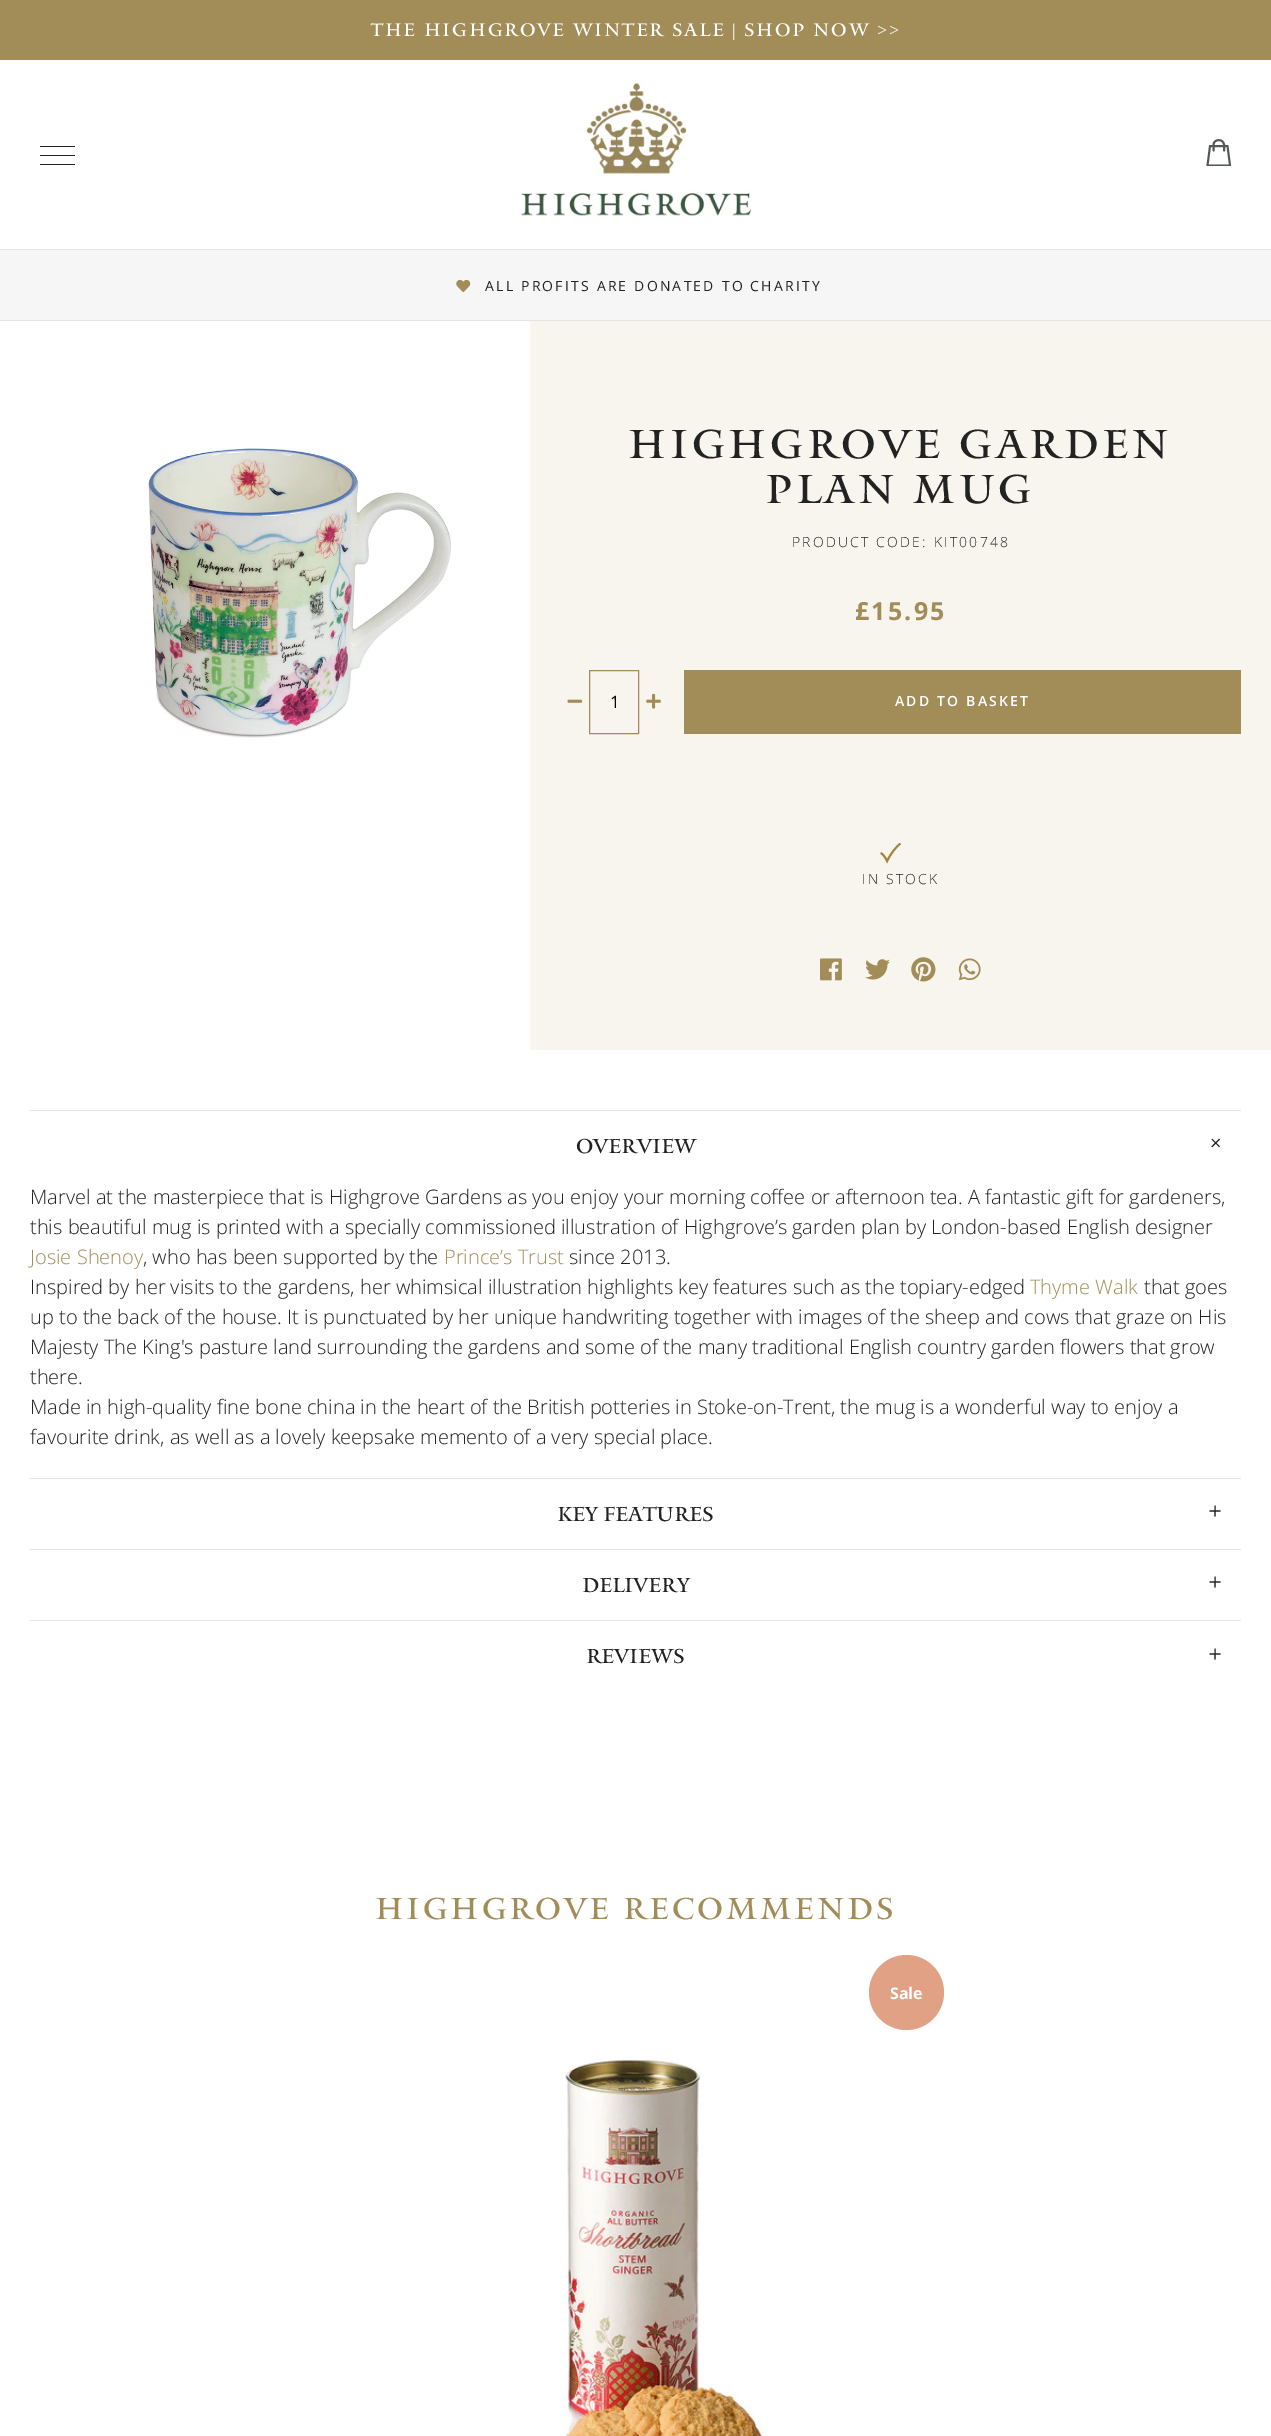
%!PS-Adobe-3.0
%%BoundingBox: 0 0 1271 2436
%%LanguageLevel: 3
%%Pages: 1
%%EndComments
%%BeginProlog
/rrect { 5 dict begin { /r /h /w /y /x } { exch def } forall
  x r add y moveto x w add y 2 copy h add r arct x w add y h add x 1 index r arct
  x y h add x y r arct x y 2 copy exch w add exch r arct closepath end } def
/drawimage { 5 dict begin { /h /w /y /x /name } { exch def } forall
  gsave x y translate w h scale
  w h 8 [w 0 0 h 0 0] name (r) file false 3 colorimage grestore end } def
%%EndProlog
%%BeginSetup
<< /PageSize [1271 2436] >> setpagedevice
%%EndSetup
%%Page: 1 1
0 2436 translate 1 -1 scale
4 setmiterlimit
1 setgray
0 0 1271 2436 rectfill
0.635 0.553 0.345 setrgbcolor
0 0 1271 60 rectfill
0.133 setgray
40 155 35 1 0.5 rrect fill
40 146 35 1 0.5 rrect fill
40 164 35 1 0.5 rrect fill
(images/1.raw) 521 80 231 136 drawimage
gsave
1206 139 25 27 rectclip
0.329 0.341 0.349 setrgbcolor
1.9 setlinewidth
newpath 1210 146 moveto 1207.5 165.5 lineto 1230 165.5 lineto 1227.5 146 lineto closepath 1224 145 moveto 1224 138.5 1213.5 138.5 1213.5 145 curveto stroke
grestore
0.329 0.341 0.349 setrgbcolor
1.9 setlinewidth
1 setlinecap
newpath 1213.5 147 moveto 1213.5 150.5 lineto 1224 147 moveto 1224 150.5 lineto stroke
0.965 setgray
0 250 1271 70 rectfill
0.894 setgray
0 249 1271 1 rectfill
0 320 1271 1 rectfill
(images/2.raw) 456 279 15 14 drawimage
(images/3.raw) 148 447 303 291 drawimage
0.973 0.961 0.933 setrgbcolor
530 321 741 729 rectfill
(images/4.raw) 567 699 16 4 drawimage
0.635 0.553 0.345 setrgbcolor
1 setlinewidth
0 setlinecap
589.5 670.5 49 63 rectstroke
(images/5.raw) 646 693 15 16 drawimage
684 670 557 64 rectfill
(images/6.raw) 880 843 21 21 drawimage
(images/7.raw) 820 958 22 23 drawimage
(images/8.raw) 865 959 25 21 drawimage
(images/9.raw) 911 957 25 25 drawimage
(images/10.raw) 958 958 23 23 drawimage
0.894 setgray
30 1110 1211 1 rectfill
30 1478 1211 1 rectfill
30 1549 1211 1 rectfill
30 1620 1211 1 rectfill
0.882 0.631 0.518 setrgbcolor
newpath 906.5 1992.5 37.5 0 360 arc closepath fill
(images/11.raw) 565 2057 199 379 drawimage
/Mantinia-Regular [18 0 0 -18 0 0] selectfont
1 setgray
371 36 moveto 1.8 0 (THE HIGHGROVE WINTER SALE) ashow
/LiberationSerif-Regular [18 0 0 -18 0 0] selectfont
732 36 moveto 1.8 0 (|) ashow
/Mantinia-Regular [18 0 0 -18 0 0] selectfont
744 36 moveto 1.8 0 (SHOP NOW) ashow
/LiberationSerif-Regular [18 0 0 -18 0 0] selectfont
877 36 moveto 1.8 0 (>>) ashow
/OpenSans-Regular [14 0 0 -14 0 0] selectfont
0.133 setgray
485 291 moveto 2.2 0 (ALL PROFITS ARE DONATED TO CHARITY) ashow
/Mantinia-Regular [40 0 0 -40 0 0] selectfont
628 458 moveto 4 0 (HIGHGROVE GARDEN) ashow
765 503 moveto 4 0 (PLAN MUG) ashow
/OpenSans-Light [14 0 0 -14 0 0] selectfont
792 547 moveto 2.2 0 (PRODUCT CODE: KIT00748) ashow
/OpenSans-Bold [25 0 0 -25 0 0] selectfont
0.635 0.553 0.345 setrgbcolor
855 620 moveto 2.2 0 (£15.95) ashow
/OpenSans-Regular [17 0 0 -17 0 0] selectfont
0 setgray
610 708 moveto (1) show
/OpenSans-SemiBold [14 0 0 -14 0 0] selectfont
1 setgray
895 706 moveto 2.2 0 (ADD TO BASKET) ashow
/OpenSans-Light [14 0 0 -14 0 0] selectfont
0.133 setgray
862 884 moveto 2.2 0 (IN STOCK) ashow
/Mantinia-Regular [20 0 0 -20 0 0] selectfont
576 1153 moveto (OVERVIEW) show
/OpenSans-Regular [20 0 0 -20 0 0] selectfont
1210 1150 moveto (×) show
/OpenSans-Light [20 0 0 -20 0 0] selectfont
30 1204 moveto (Marvel at the masterpiece that is Highgrove Gardens as you enjoy your morning coffee or afternoon tea. A fantastic gift for gardeners,) show
30 1234 moveto (this beautiful mug is printed with a specially commissioned illustration of Highgrove’s garden plan by London-based English designer) show
0.635 0.553 0.345 setrgbcolor
30 1264 moveto (Josie Shenoy) show
0.133 setgray
143 1264 moveto (, who has been supported by the) show
0.635 0.553 0.345 setrgbcolor
444 1264 moveto (Prince’s Trust) show
0.133 setgray
569 1264 moveto (since 2013.) show
30 1294 moveto (Inspired by her visits to the gardens, her whimsical illustration highlights key features such as the topiary-edged) show
0.635 0.553 0.345 setrgbcolor
1030 1294 moveto (Thyme Walk) show
0.133 setgray
1144 1294 moveto (that goes) show
30 1324 moveto (up to the back of the house. It is punctuated by her unique handwriting together with images of the sheep and cows that graze on His) show
30 1354 moveto (Majesty The King's pasture land surrounding the gardens and some of the many traditional English country garden flowers that grow) show
30 1384 moveto (there.) show
30 1414 moveto (Made in high-quality fine bone china in the heart of the British potteries in Stoke-on-Trent, the mug is a wonderful way to enjoy a) show
30 1444 moveto (favourite drink, as well as a lovely keepsake memento of a very special place.) show
/Mantinia-Regular [20 0 0 -20 0 0] selectfont
557 1521 moveto (KEY FEATURES) show
/OpenSans-Regular [20 0 0 -20 0 0] selectfont
gsave 1216 1520 translate -45 rotate 0 0 moveto (×) show grestore
/Mantinia-Regular [20 0 0 -20 0 0] selectfont
582 1592 moveto (DELIVERY) show
/OpenSans-Regular [20 0 0 -20 0 0] selectfont
gsave 1216 1591 translate -45 rotate 0 0 moveto (×) show grestore
/Mantinia-Regular [20 0 0 -20 0 0] selectfont
586 1663 moveto (REVIEWS) show
/OpenSans-Regular [20 0 0 -20 0 0] selectfont
gsave 1216 1663 translate -45 rotate 0 0 moveto (×) show grestore
/Mantinia-Regular [30 0 0 -30 0 0] selectfont
0.635 0.553 0.345 setrgbcolor
375 1919 moveto 3 0 (HIGHGROVE RECOMMENDS) ashow
/OpenSans-Bold [16 0 0 -16 0 0] selectfont
1 setgray
890 1999 moveto (Sale) show
showpage
%%EOF
